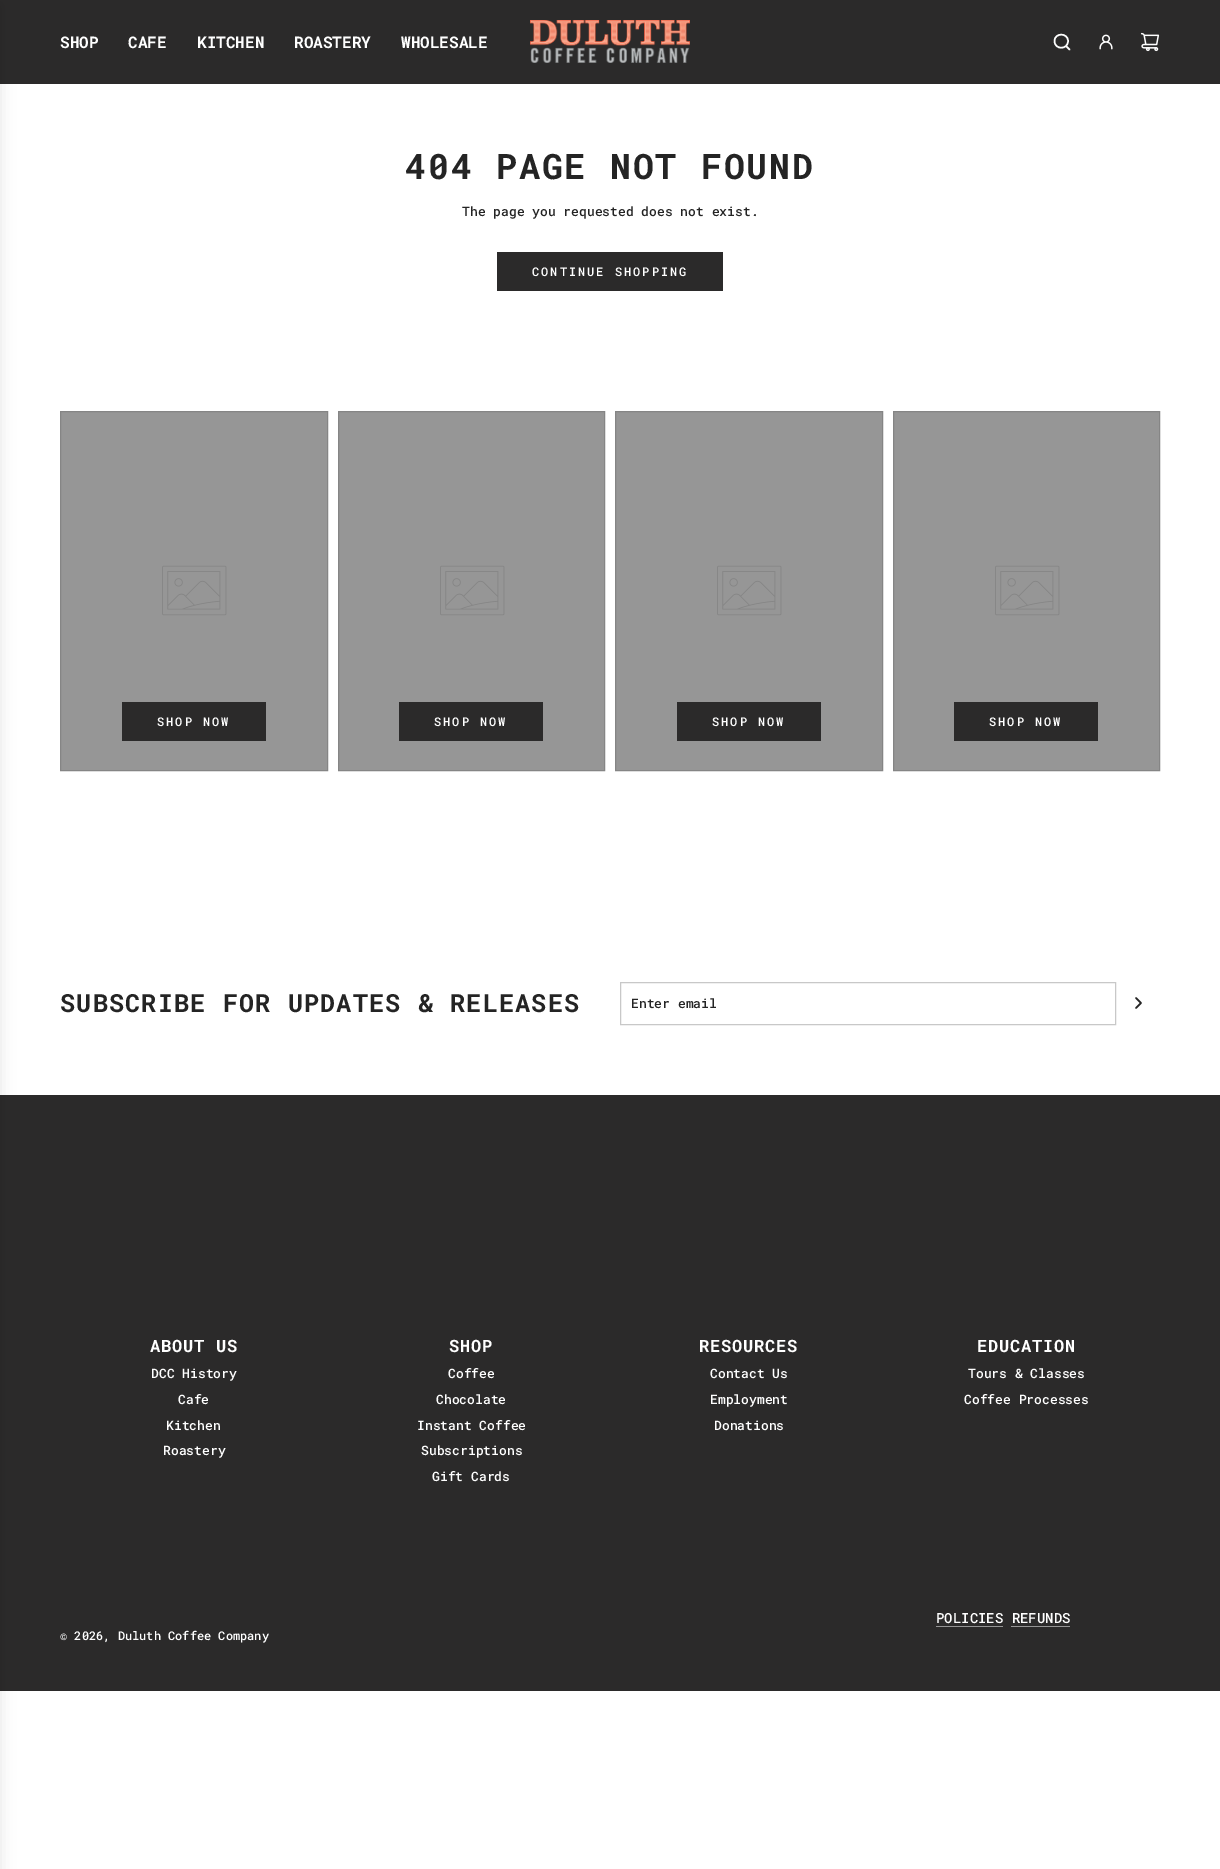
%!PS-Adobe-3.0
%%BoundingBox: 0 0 1220 1869
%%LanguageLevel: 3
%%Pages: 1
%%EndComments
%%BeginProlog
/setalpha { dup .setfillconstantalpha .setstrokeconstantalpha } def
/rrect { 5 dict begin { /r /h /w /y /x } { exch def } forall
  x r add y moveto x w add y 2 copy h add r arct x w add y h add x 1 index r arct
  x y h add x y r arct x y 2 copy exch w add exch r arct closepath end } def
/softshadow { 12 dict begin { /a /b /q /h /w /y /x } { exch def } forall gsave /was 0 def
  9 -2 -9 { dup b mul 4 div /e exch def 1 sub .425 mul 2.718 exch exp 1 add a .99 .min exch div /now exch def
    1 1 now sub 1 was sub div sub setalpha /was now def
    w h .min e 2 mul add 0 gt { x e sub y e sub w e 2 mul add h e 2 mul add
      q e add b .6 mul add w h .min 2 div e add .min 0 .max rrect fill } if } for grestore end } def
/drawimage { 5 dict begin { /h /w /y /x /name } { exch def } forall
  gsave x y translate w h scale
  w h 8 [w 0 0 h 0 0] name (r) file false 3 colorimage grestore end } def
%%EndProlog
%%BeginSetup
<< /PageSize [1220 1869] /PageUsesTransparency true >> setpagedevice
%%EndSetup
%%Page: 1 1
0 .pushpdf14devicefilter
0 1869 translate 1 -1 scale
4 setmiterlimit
1 setgray
0 0 1220 1869 rectfill
0.169 0.165 0.165 setrgbcolor
0 0 1220 84 rectfill
0 1095 1220 596 rectfill
0 setgray
-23 5 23 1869 0 7.5 0.1 softshadow
(images/1.raw) 530 20 160 43 drawimage
1 setgray
1.5 setlinewidth
1 setlinecap
1 setlinejoin
newpath 1066 46 moveto 1069.5 49.5 lineto 1054.5 41 moveto 1054.5 50 1068 50 1068 41 curveto 1068 32.5 1054.5 32.5 1054.5 41 curveto closepath stroke
(images/2.raw) 1099 34 14 16 drawimage
(images/3.raw) 1140 32 20 20 drawimage
0.169 0.165 0.165 setrgbcolor
497 252 226 39 rectfill
0.588 setgray
newpath 60.5 411.5 moveto 327.5 411.5 lineto 327.5 770.5 lineto 60.5 770.5 lineto closepath gsave fill grestore
0.522 setgray
1 setlinewidth
0 setlinecap
0 setlinejoin
stroke
(images/4.raw) 162 565 65 51 drawimage
0.169 0.165 0.165 setrgbcolor
122 702 144 39 rectfill
0.588 setgray
newpath 338.5 411.5 moveto 604.5 411.5 lineto 604.5 770.5 lineto 338.5 770.5 lineto closepath gsave fill grestore
0.522 setgray
stroke
(images/4.raw) 440 565 65 51 drawimage
0.169 0.165 0.165 setrgbcolor
399 702 144 39 rectfill
0.588 setgray
newpath 615.5 411.5 moveto 882.5 411.5 lineto 882.5 770.5 lineto 615.5 770.5 lineto closepath gsave fill grestore
0.522 setgray
stroke
(images/4.raw) 717 565 65 51 drawimage
0.169 0.165 0.165 setrgbcolor
677 702 144 39 rectfill
0.588 setgray
newpath 893.5 411.5 moveto 1159.5 411.5 lineto 1159.5 770.5 lineto 893.5 770.5 lineto closepath gsave fill grestore
0.522 setgray
stroke
(images/4.raw) 995 565 65 51 drawimage
0.169 0.165 0.165 setrgbcolor
954 702 144 39 rectfill
0.784 setgray
620.5 982.5 495 42 rectstroke
0.141 setgray
1.5 setlinewidth
1 setlinecap
1 setlinejoin
newpath 1136 998 moveto 1141 1003 lineto 1136 1008 lineto stroke
0.584 setgray
936 1626 67 1 rectfill
1011 1626 59 1 rectfill
/RobotoMono-Bold [16 0 0 -16 0 0] selectfont
1 setgray
60 48 moveto (SHOP) show
128 48 moveto (CAFE) show
197 48 moveto (KITCHEN) show
294 48 moveto (ROASTERY) show
401 48 moveto (WHOLESALE) show
/RobotoMono-Bold [35 0 0 -35 0 0] selectfont
0.141 setgray
405 179 moveto 1.75 0 (404 PAGE NOT FOUND) ashow
/RobotoMono-Medium [13 0 0 -13 0 0] selectfont
462 216 moveto (The page you requested does not exist.) show
/RobotoMono-Medium [12 0 0 -12 0 0] selectfont
1 setgray
532 276 moveto 2 0 (CONTINUE SHOPPING) ashow
157 726 moveto 2 0 (SHOP NOW) ashow
434 726 moveto 2 0 (SHOP NOW) ashow
712 726 moveto 2 0 (SHOP NOW) ashow
989 726 moveto 2 0 (SHOP NOW) ashow
/RobotoMono-Bold [25 0 0 -25 0 0] selectfont
0.141 setgray
60 1012 moveto 1.25 0 (SUBSCRIBE FOR UPDATES & RELEASES) ashow
/RobotoMono-Medium [13 0 0 -13 0 0] selectfont
631 1008 moveto (Enter email) show
/RobotoMono-Bold [17 0 0 -17 0 0] selectfont
1 setgray
150 1352 moveto 0.75 0 (ABOUT US) ashow
/RobotoMono-Medium [13 0 0 -13 0 0] selectfont
151 1378 moveto (DCC History) show
178 1404 moveto (Cafe) show
166 1430 moveto (Kitchen) show
163 1455 moveto (Roastery) show
/RobotoMono-Bold [17 0 0 -17 0 0] selectfont
449 1352 moveto 0.75 0 (SHOP) ashow
/RobotoMono-Medium [13 0 0 -13 0 0] selectfont
448 1378 moveto (Coffee) show
436 1404 moveto (Chocolate) show
417 1430 moveto (Instant Coffee) show
421 1455 moveto (Subscriptions) show
432 1481 moveto (Gift Cards) show
/RobotoMono-Bold [17 0 0 -17 0 0] selectfont
699 1352 moveto 0.75 0 (RESOURCES) ashow
/RobotoMono-Medium [13 0 0 -13 0 0] selectfont
710 1378 moveto (Contact Us) show
710 1404 moveto (Employment) show
714 1430 moveto (Donations) show
/RobotoMono-Bold [17 0 0 -17 0 0] selectfont
977 1352 moveto 0.75 0 (EDUCATION) ashow
/RobotoMono-Medium [13 0 0 -13 0 0] selectfont
968 1378 moveto (Tours & Classes) show
964 1404 moveto (Coffee Processes) show
/RobotoMono-Medium [14 0 0 -14 0 0] selectfont
936 1623 moveto (POLICIES REFUNDS) show
/RobotoMono-Medium [12 0 0 -12 0 0] selectfont
60 1640 moveto (© 2026, Duluth Coffee Company) show
.poppdf14devicefilter showpage
%%EOF
